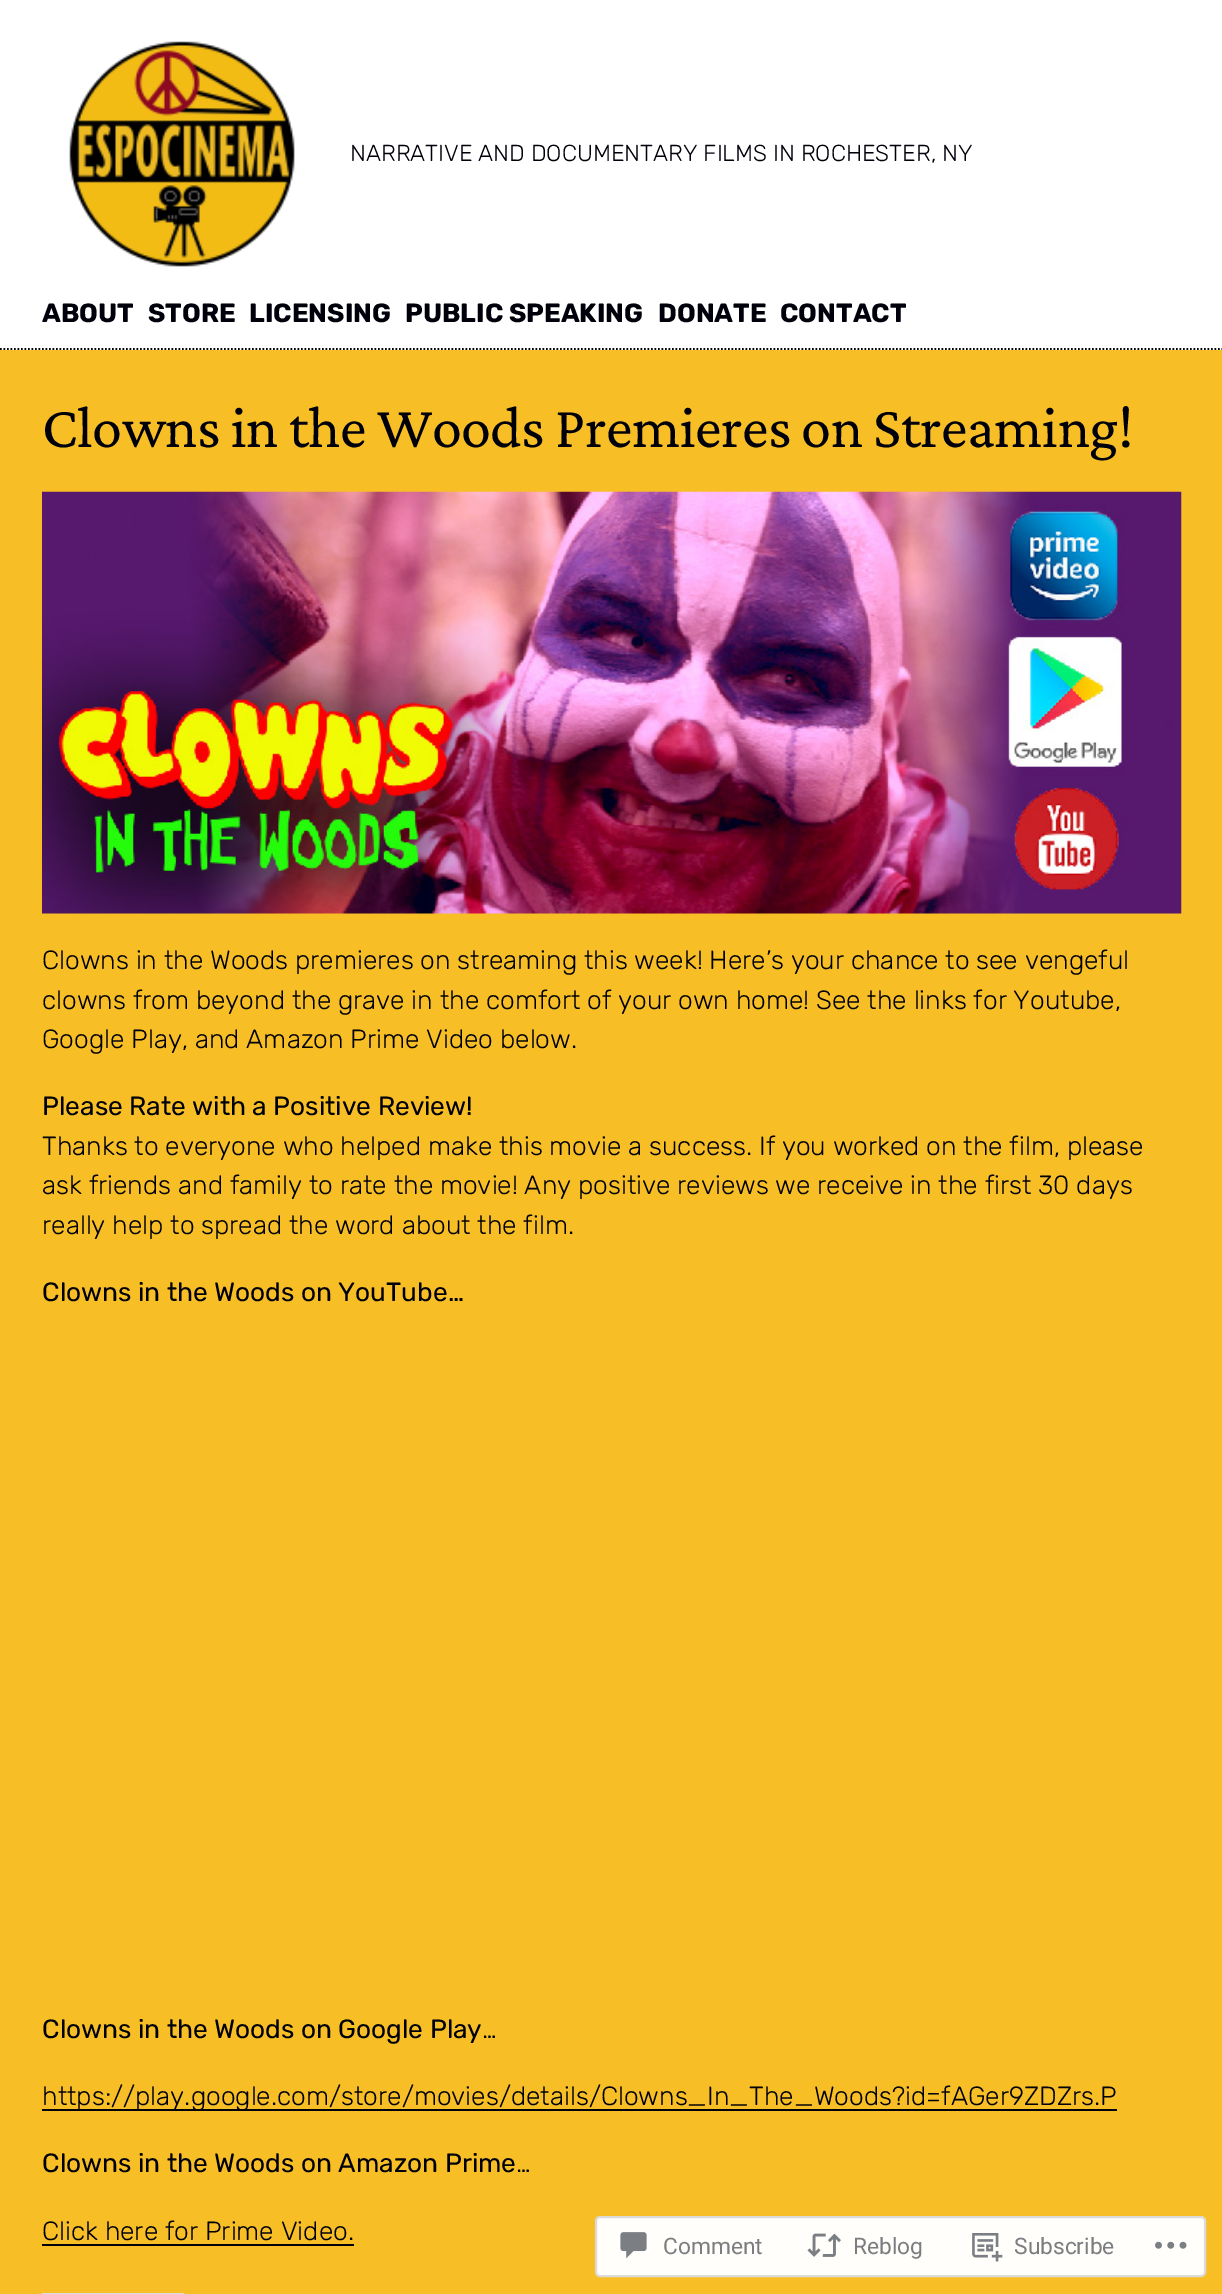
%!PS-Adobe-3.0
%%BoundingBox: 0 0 1222 2294
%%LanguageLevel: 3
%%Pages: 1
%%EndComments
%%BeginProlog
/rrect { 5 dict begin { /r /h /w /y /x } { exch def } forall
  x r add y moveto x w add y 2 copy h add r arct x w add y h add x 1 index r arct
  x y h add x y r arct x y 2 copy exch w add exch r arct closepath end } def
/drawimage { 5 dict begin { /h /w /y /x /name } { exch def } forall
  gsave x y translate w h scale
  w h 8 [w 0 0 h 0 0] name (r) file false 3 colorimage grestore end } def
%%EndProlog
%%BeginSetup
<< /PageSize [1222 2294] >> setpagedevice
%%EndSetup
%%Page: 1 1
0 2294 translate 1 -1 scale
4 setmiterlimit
0.969 0.745 0.149 setrgbcolor
0 0 1222 2294 rectfill
1 setgray
0 0 1222 350 rectfill
0 0 0.039 setrgbcolor
1.8 setlinewidth
[1.75 1.75] 0 setdash
newpath 0 349 moveto 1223 349 lineto stroke
(images/1.raw) 69 41 226 226 drawimage
(images/2.raw) 42 491 1140 423 drawimage
42 2109 1075 2 rectfill
42 2244 312 2 rectfill
0.863 0.863 0.871 setrgbcolor
42 2293 142 1 rectfill
1 0.996 0.984 setrgbcolor
596 2217 609 59 4 rrect gsave fill grestore
0.867 0.859 0.855 setrgbcolor
2 setlinewidth
[] 0 setdash
stroke
(images/3.raw) 620 2232 27 27 drawimage
(images/4.raw) 807 2233 34 24 drawimage
(images/5.raw) 972 2233 31 29 drawimage
(images/6.raw) 1155 2241 32 8 drawimage
/Rubik-Light [23.1 0 0 -23.1 0 0] selectfont
0 0 0.039 setrgbcolor
350 161 moveto (NARRATIVE AND DOCUMENTARY FILMS IN ROCHESTER, NY) show
/Rubik-Bold [26.3 0 0 -26.3 0 0] selectfont
42 322 moveto (ABOUT) show
148 322 moveto (STORE) show
249 322 moveto (LICENSING) show
405 322 moveto (PUBLIC SPEAKING) show
658 322 moveto (DONATE) show
780 322 moveto (CONTACT) show
/CrimsonPro-Regular [60.25 0 0 -60.25 0 0] selectfont
42 447 moveto -0.55 0 (Clowns in the Woods Premieres on Streaming!) ashow
/Rubik-Light [26.3 0 0 -26.3 0 0] selectfont
42 969 moveto (Clowns in the Woods premieres on streaming this week! Here’s your chance to see vengeful) show
42 1009 moveto (clowns from beyond the grave in the comfort of your own home! See the links for Youtube,) show
42 1048 moveto (Google Play, and Amazon Prime Video below.) show
/Rubik-Regular [26.3 0 0 -26.3 0 0] selectfont
42 1115 moveto (Please Rate with a Positive Review!) show
/Rubik-Light [26.3 0 0 -26.3 0 0] selectfont
42 1155 moveto (Thanks to everyone who helped make this movie a success. If you worked on the film, please) show
42 1194 moveto (ask friends and family to rate the movie! Any positive reviews we receive in the first 30 days) show
42 1234 moveto (really help to spread the word about the film.) show
/Rubik-Regular [26.3 0 0 -26.3 0 0] selectfont
42 1301 moveto (Clowns in the Woods on YouTube…) show
42 2038 moveto (Clowns in the Woods on Google Play) show
/Rubik-Light [26.3 0 0 -26.3 0 0] selectfont
482 2038 moveto (…) show
42 2105 moveto (https://play.google.com/store/movies/details/Clowns_In_The_Woods?id=fAGer9ZDZrs.P) show
/Rubik-Regular [26.3 0 0 -26.3 0 0] selectfont
42 2172 moveto (Clowns in the Woods on Amazon Prime) show
/Rubik-Light [26.3 0 0 -26.3 0 0] selectfont
516 2172 moveto (…) show
42 2240 moveto (Click here for Prime Video.) show
/Roboto-Regular [22.75 0 0 -22.75 0 0] selectfont
0.482 0.49 0.502 setrgbcolor
663 2254 moveto (Comment) show
853 2254 moveto (Reblog) show
1014 2254 moveto (Subscribe) show
showpage
%%EOF
